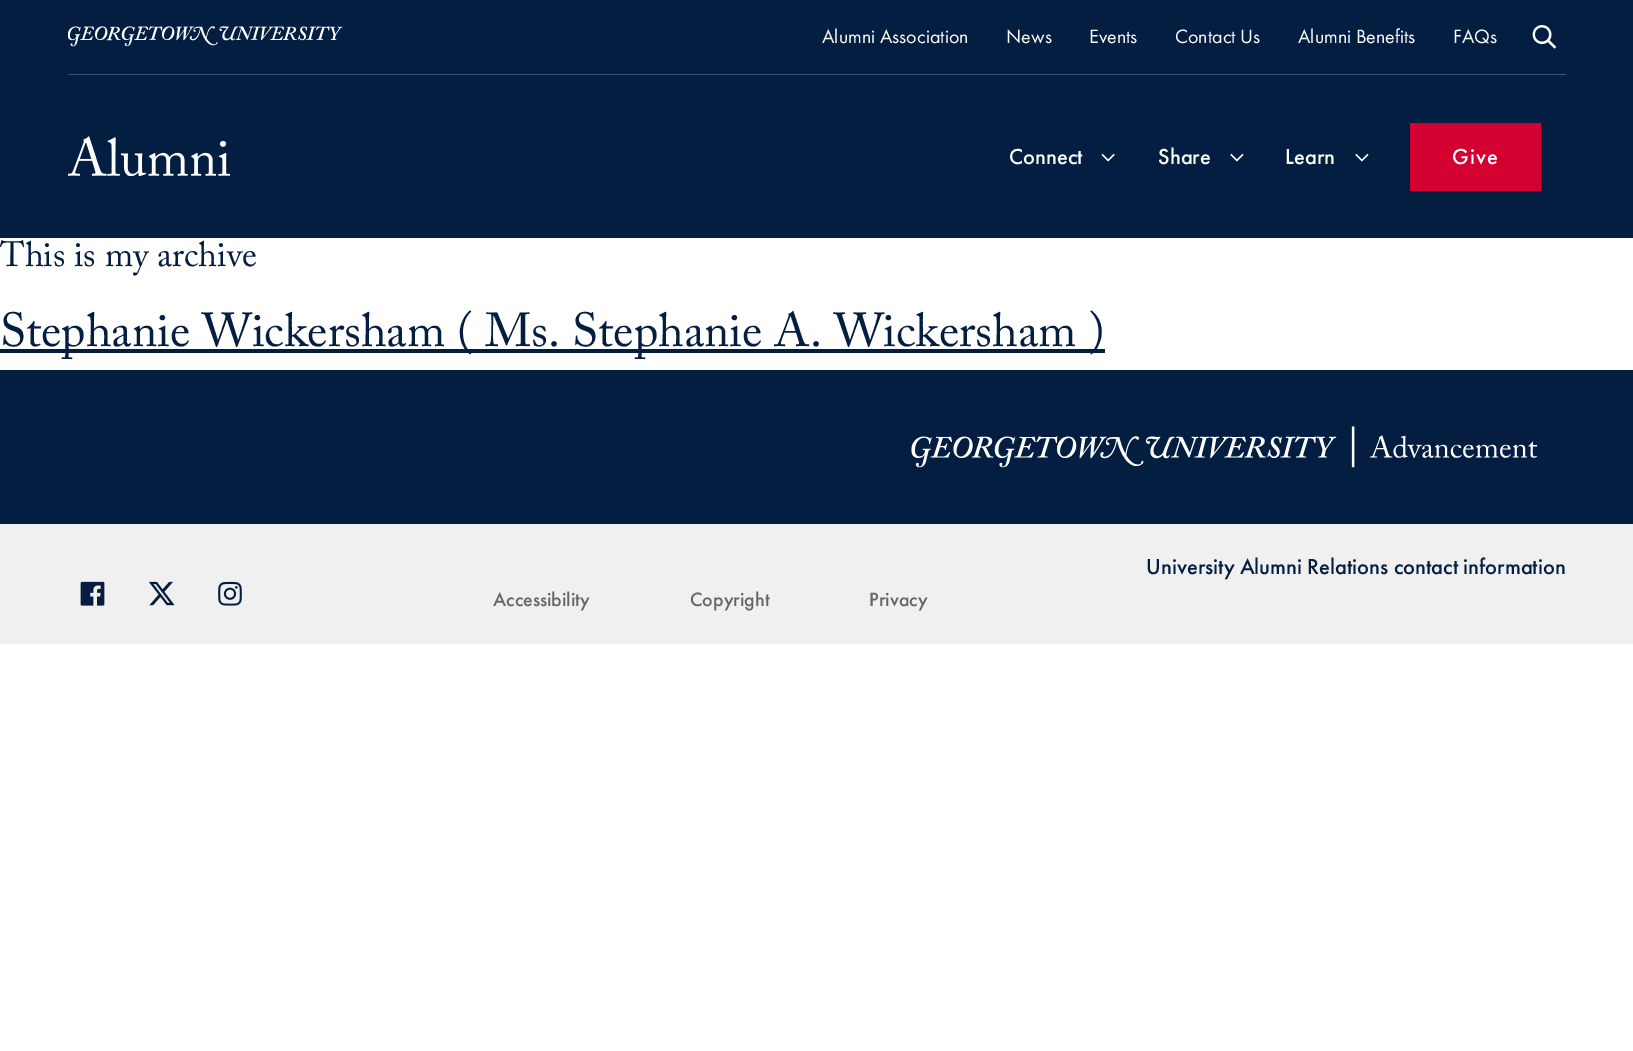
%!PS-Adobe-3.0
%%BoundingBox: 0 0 1633 1051
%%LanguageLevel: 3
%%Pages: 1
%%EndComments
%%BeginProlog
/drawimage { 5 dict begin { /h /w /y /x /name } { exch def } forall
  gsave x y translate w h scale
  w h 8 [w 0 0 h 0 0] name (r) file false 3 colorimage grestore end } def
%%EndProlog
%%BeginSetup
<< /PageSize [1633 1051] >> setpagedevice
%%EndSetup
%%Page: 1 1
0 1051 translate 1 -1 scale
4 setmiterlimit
1 setgray
0 0 1633 1051 rectfill
0.016 0.118 0.259 setrgbcolor
0 0 1633 238 rectfill
0.224 0.325 0.467 setrgbcolor
68 74 1498 1 rectfill
(images/1.raw) 68 26 275 21 drawimage
(images/2.raw) 1532 25 25 24 drawimage
(images/3.raw) 68 136 162 40 drawimage
(images/4.raw) 1101 153 14 9 drawimage
(images/5.raw) 1230 153 14 9 drawimage
(images/5.raw) 1355 153 14 9 drawimage
0.835 0 0.196 setrgbcolor
1410 123 131 68 rectfill
0.016 0.118 0.259 setrgbcolor
0 349 1105 4 rectfill
0 370 1633 154 rectfill
(images/6.raw) 911 426 627 42 drawimage
0.941 setgray
0 524 1633 120 rectfill
(images/7.raw) 80 581 25 25 drawimage
(images/8.raw) 149 581 26 25 drawimage
(images/9.raw) 218 581 24 25 drawimage
/FuturaPT-Regular [20 0 0 -20 0 0] selectfont
1 setgray
822 43 moveto (Alumni Association) show
1006 43 moveto (News) show
1089 43 moveto (Events) show
1175 43 moveto (Contact Us) show
1298 43 moveto (Alumni Benefits) show
1453 43 moveto (FAQs) show
/FuturaPT-Medium [22.5 0 0 -22.5 0 0] selectfont
1009 164 moveto (Connect) show
1158 164 moveto (Share) show
1285 164 moveto (Learn) show
1452 164 moveto 1 0 (Give) ashow
/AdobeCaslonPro-Regular [35 0 0 -35 0 0] selectfont
0.016 0.118 0.259 setrgbcolor
0 266 moveto (This is my archive) show
/AdobeCaslonPro-Regular [47.5 0 0 -47.5 0 0] selectfont
0 346 moveto (Stephanie Wickersham \( Ms. Stephanie A. Wickersham \)) show
/FuturaPT-Medium [22.5 0 0 -22.5 0 0] selectfont
1146 574 moveto (University Alumni Relations contact information) show
/FuturaPT-Medium [20 0 0 -20 0 0] selectfont
0.388 0.4 0.416 setrgbcolor
493 606 moveto (Accessibility) show
690 606 moveto (Copyright) show
869 606 moveto (Privacy) show
showpage
%%EOF
